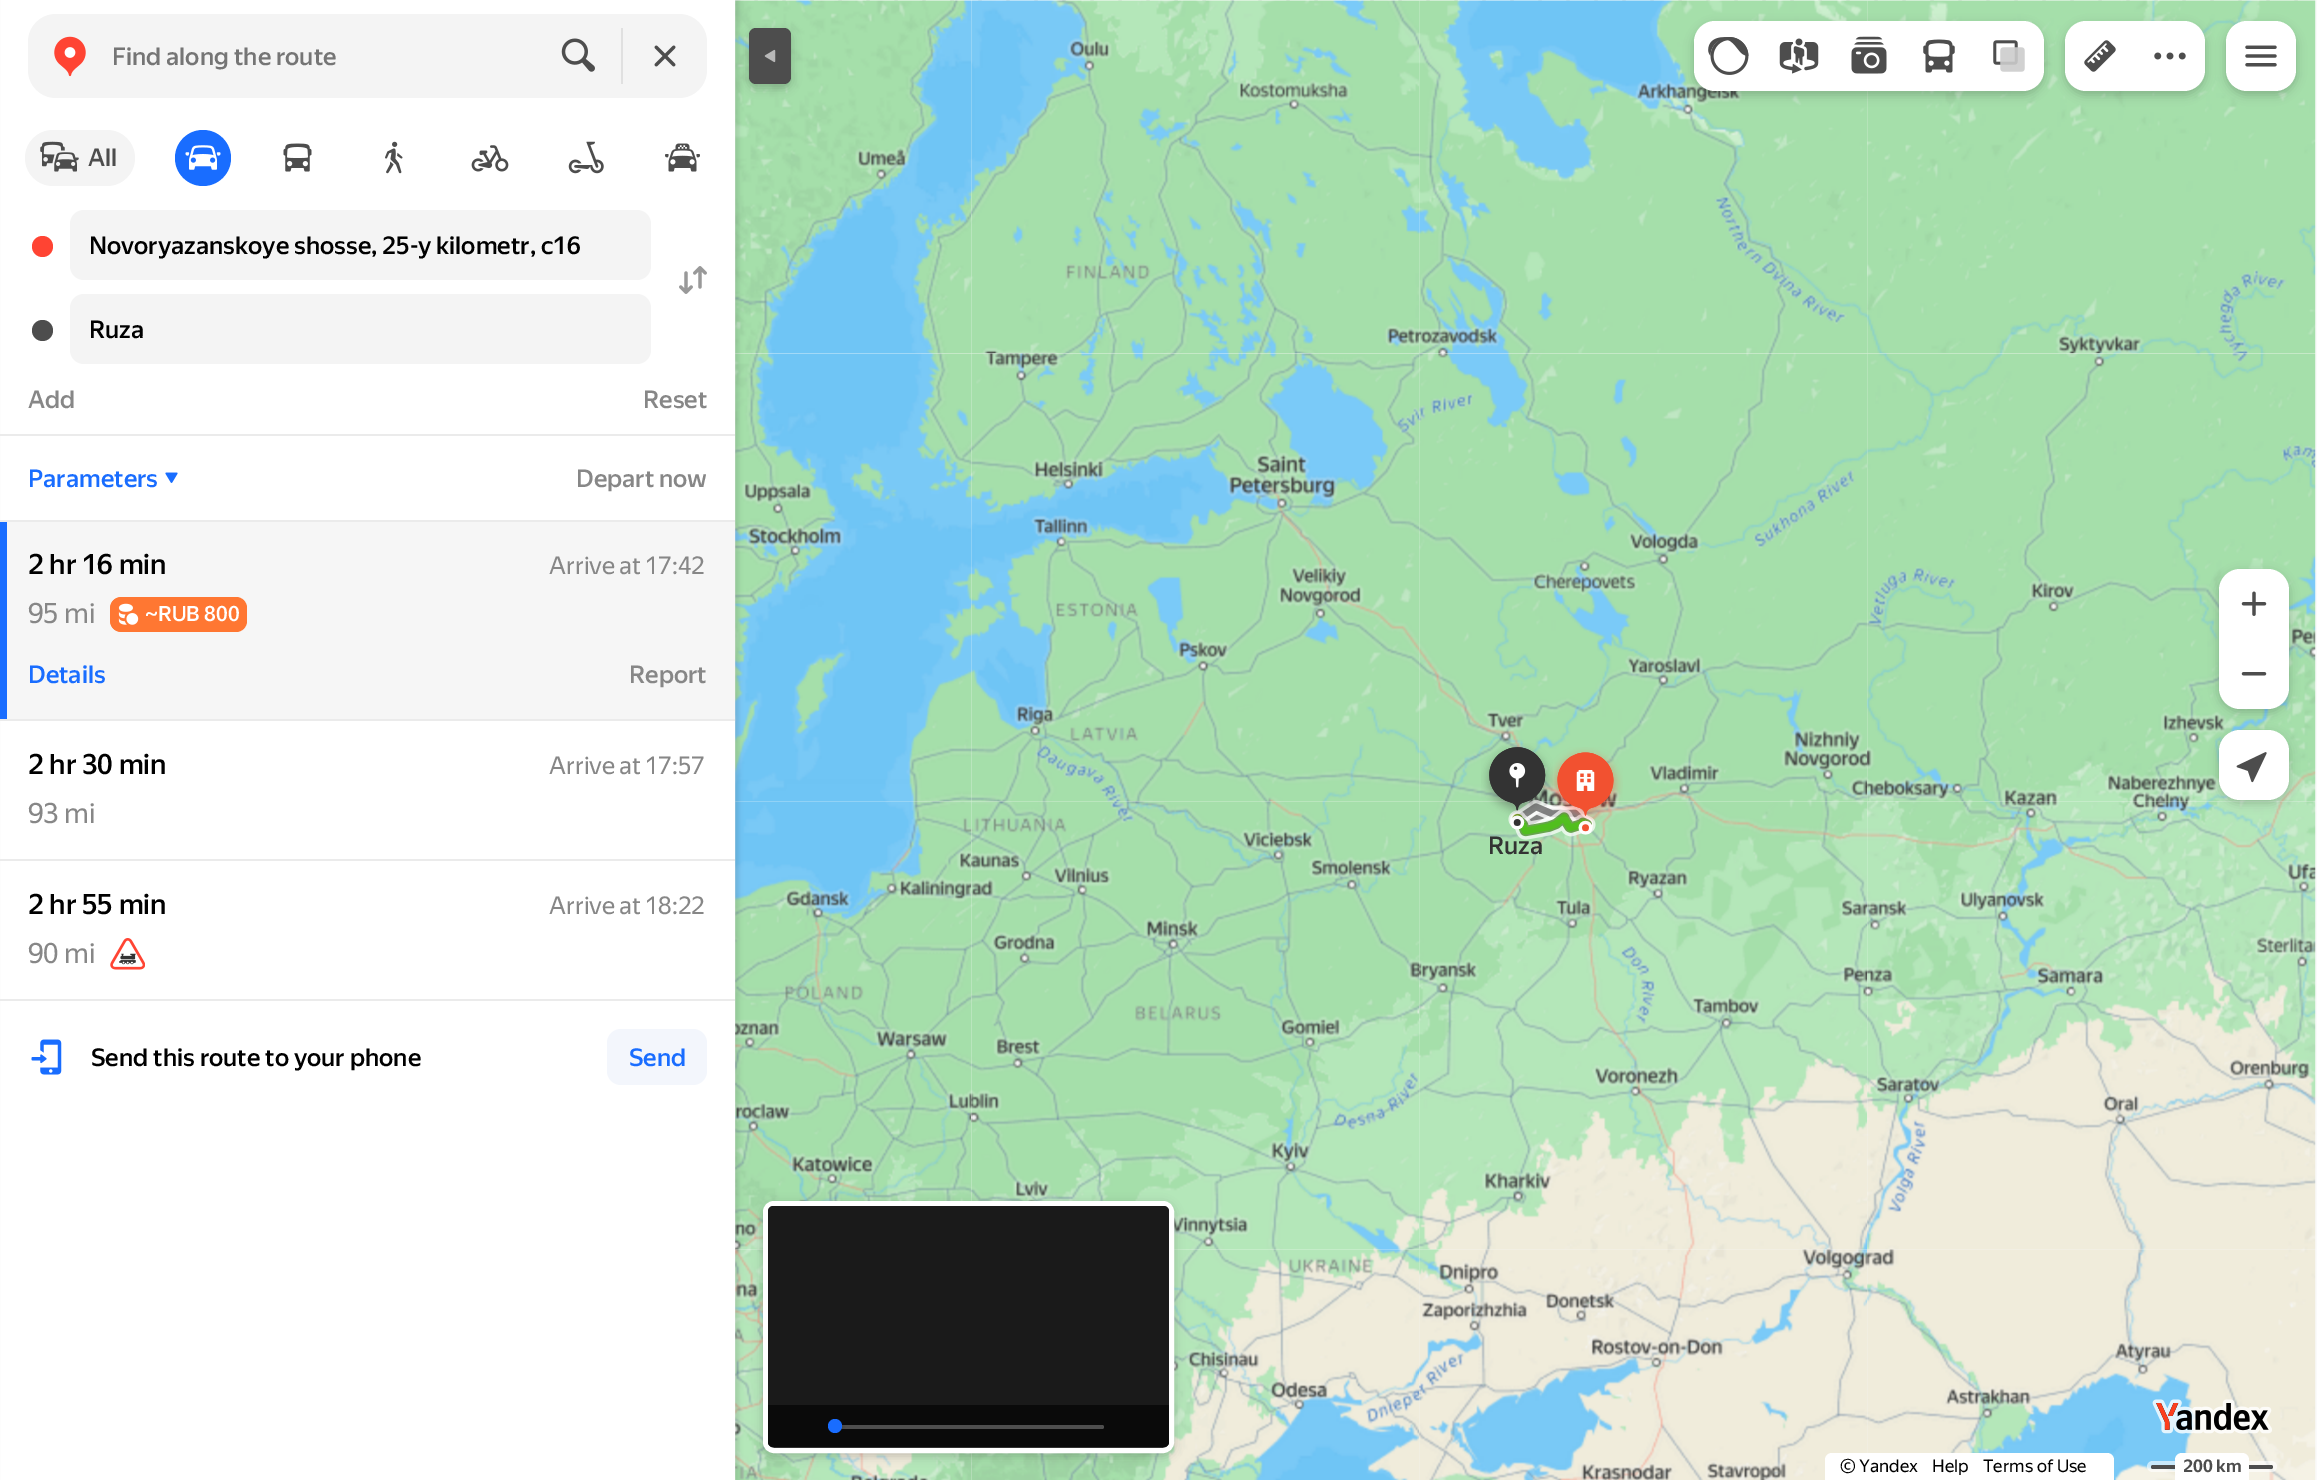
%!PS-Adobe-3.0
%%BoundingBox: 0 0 2317 1480
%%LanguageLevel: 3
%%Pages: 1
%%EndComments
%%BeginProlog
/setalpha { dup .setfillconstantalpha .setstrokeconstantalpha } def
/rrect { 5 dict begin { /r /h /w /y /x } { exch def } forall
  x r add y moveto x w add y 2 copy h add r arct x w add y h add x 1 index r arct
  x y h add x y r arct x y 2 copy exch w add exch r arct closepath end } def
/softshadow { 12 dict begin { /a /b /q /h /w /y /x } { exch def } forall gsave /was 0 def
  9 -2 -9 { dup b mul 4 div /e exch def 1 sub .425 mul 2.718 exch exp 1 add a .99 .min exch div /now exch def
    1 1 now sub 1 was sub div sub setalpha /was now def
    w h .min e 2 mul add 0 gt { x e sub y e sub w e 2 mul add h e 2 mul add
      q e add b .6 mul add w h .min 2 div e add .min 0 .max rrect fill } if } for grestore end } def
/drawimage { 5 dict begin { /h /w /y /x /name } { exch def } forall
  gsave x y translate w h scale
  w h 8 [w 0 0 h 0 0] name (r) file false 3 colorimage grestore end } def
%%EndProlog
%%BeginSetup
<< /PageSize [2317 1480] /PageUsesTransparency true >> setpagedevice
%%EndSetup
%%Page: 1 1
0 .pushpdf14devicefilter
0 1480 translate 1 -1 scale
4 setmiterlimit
1 setgray
0 0 2317 1480 rectfill
(images/1.raw) 735 0 1582 1480 drawimage
(images/30.raw) 735 0 237 354 drawimage
(images/31.raw) 971 0 449 354 drawimage
(images/34.raw) 735 353 237 449 drawimage
(images/32.raw) 1419 0 449 354 drawimage
(images/35.raw) 971 353 449 449 drawimage
(images/38.raw) 735 801 237 449 drawimage
(images/33.raw) 1867 0 449 354 drawimage
(images/36.raw) 1419 353 449 449 drawimage
(images/39.raw) 971 801 449 449 drawimage
(images/42.raw) 735 1249 237 231 drawimage
0 setgray
4 0 735 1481 0 2 0.1 softshadow
749 32 42 56 7 5 0.2 softshadow
1 setgray
1 0 734 1480 rectfill
0.957 setgray
28 14 679 84 28 rrect fill
(images/2.raw) 54 36 32 41 drawimage
(images/3.raw) 561 38 34 34 drawimage
0.878 setgray
621 28 2 56 rectfill
(images/4.raw) 654 45 22 22 drawimage
0 setgray
1694 25 350 70 21 5 0.2 softshadow
1 setgray
newpath 1715 21 moveto 1764 21 lineto 1764 91 lineto 1715 91 lineto 1703.5 91 1694 81.5 1694 70 curveto 1694 42 lineto 1694 30.5 1703.5 21 1715 21 curveto closepath fill
(images/5.raw) 1708 37 41 38 drawimage
1764 21 210 70 rectfill
(images/6.raw) 1779 38 40 36 drawimage
newpath 1974 21 moveto 2023 21 lineto 2034.5 21 2044 30.5 2044 42 curveto 2044 70 lineto 2044 81.5 2034.5 91 2023 91 curveto 1974 91 lineto closepath fill
(images/7.raw) 1993 40 32 32 drawimage
(images/8.raw) 1851 36 36 38 drawimage
(images/9.raw) 1923 39 32 34 drawimage
0 setgray
2065 25 140 70 21 5 0.2 softshadow
1 setgray
newpath 2086 21 moveto 2135 21 lineto 2135 91 lineto 2086 91 lineto 2074.5 91 2065 81.5 2065 70 curveto 2065 42 lineto 2065 30.5 2074.5 21 2086 21 curveto closepath fill
(images/10.raw) 2084 40 32 32 drawimage
newpath 2135 21 moveto 2184 21 lineto 2195.5 21 2205 30.5 2205 42 curveto 2205 70 lineto 2205 81.5 2195.5 91 2184 91 curveto 2135 91 lineto closepath fill
(images/11.raw) 2154 52 32 8 drawimage
0 setgray
2226 25 70 70 21 5 0.2 softshadow
1 setgray
2226 21 70 70 21 rrect fill
(images/12.raw) 2245 45 32 22 drawimage
(images/37.raw) 1867 353 449 449 drawimage
0 setgray
2219 572 70 140 21 5 0.2 softshadow
1 setgray
newpath 2240 569 moveto 2268 569 lineto 2279.5 569 2289 578.5 2289 590 curveto 2289 639 lineto 2219 639 lineto 2219 590 lineto 2219 578.5 2228.5 569 2240 569 curveto closepath fill
(images/13.raw) 2241 591 26 25 drawimage
newpath 2219 639 moveto 2289 639 lineto 2289 688 lineto 2289 699.5 2279.5 709 2268 709 curveto 2240 709 lineto 2228.5 709 2219 699.5 2219 688 curveto closepath fill
(images/14.raw) 2241 672 26 4 drawimage
(images/40.raw) 1419 801 449 449 drawimage
(images/41.raw) 1867 801 449 449 drawimage
0 setgray
2219 733 70 70 21 5 0.2 softshadow
1 setgray
2219 730 70 70 21 rrect fill
(images/15.raw) 2236 752 31 31 drawimage
0.302 setgray
749 28 42 56 7 rrect fill
(images/16.raw) 764 49 12 14 drawimage
0.957 setgray
25 130 110 56 28 rrect fill
(images/17.raw) 40 141 39 31 drawimage
0.098 0.427 1 setrgbcolor
newpath 203 158 28 0 360 arc closepath fill
(images/18.raw) 185 145 36 25 drawimage
(images/19.raw) 283 143 29 29 drawimage
(images/20.raw) 385 141 18 33 drawimage
(images/21.raw) 471 145 38 27 drawimage
(images/22.raw) 568 141 36 33 drawimage
(images/23.raw) 665 143 35 29 drawimage
1 0.267 0.2 setrgbcolor
newpath 42.5 246.5 10.5 0 360 arc closepath fill
0.957 setgray
70 210 581 70 14 rrect fill
0.302 setgray
newpath 42.5 330.5 10.5 0 360 arc closepath fill
0.957 setgray
70 294 581 70 14 rrect fill
(images/24.raw) 679 266 28 28 drawimage
0.922 setgray
0 434 735 2 rectfill
(images/25.raw) 165 472 13 11 drawimage
0.965 setgray
7 522 728 197 rectfill
0.098 0.427 1 setrgbcolor
0 520 7 199 rectfill
0.922 setgray
0 520 735 2 rectfill
1 0.467 0.196 setrgbcolor
110 597 137 35 11 rrect fill
(images/26.raw) 110 597 29 35 drawimage
0.922 setgray
0 719 735 2 rectfill
0 859 735 2 rectfill
(images/27.raw) 110 938 35 32 drawimage
0 999 735 2 rectfill
(images/28.raw) 31 1039 31 36 drawimage
0.953 0.965 0.988 setrgbcolor
607 1029 100 56 14 rrect fill
(images/43.raw) 971 1249 449 231 drawimage
(images/44.raw) 1419 1249 449 231 drawimage
(images/45.raw) 1867 1249 449 231 drawimage
(images/29.raw) 2152 1399 120 35 drawimage
1 setgray
newpath 1832 1453 moveto 2107 1453 lineto 2111 1453 2114 1456 2114 1460 curveto 2114 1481 lineto 1825 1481 lineto 1825 1460 lineto 1825 1456 1828 1453 1832 1453 curveto closepath fill
0.6 setalpha
2147 1461 130 11 5.5 rrect fill
1 setalpha
0.302 setgray
2151 1465 122 4 2 rrect fill
1 setgray
newpath 2182 1453 moveto 2242 1453 lineto 2246 1453 2249 1456 2249 1460 curveto 2249 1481 lineto 2175 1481 lineto 2175 1460 lineto 2175 1456 2178 1453 2182 1453 curveto closepath fill
(images/46.raw) 1508 799 88 41 drawimage
(images/47.raw) 1548 747 75 88 drawimage
(images/48.raw) 1576 770 19 21 drawimage
(images/49.raw) 1481 743 72 87 drawimage
(images/50.raw) 1509 763 17 25 drawimage
0 setgray
763 1204 411 252 11 5 0.2 softshadow
0.2 setgray
765.5 1203.5 406 247 8.5 rrect gsave fill grestore
1 setgray
5 setlinewidth
stroke
0.102 setgray
768 1206 401 241 5 rrect fill
0.6 setalpha
0 setgray
newpath 768 1405 moveto 1169 1405 lineto 1169 1442 lineto 1169 1445 1167 1447 1164 1447 curveto 773 1447 lineto 770 1447 768 1445 768 1442 curveto closepath fill
1 setalpha
0.306 setgray
833 1425 271 4 2 rrect fill
0 setgray
828 1421 14 14 7 2 0.2 softshadow
0.098 0.427 1 setrgbcolor
newpath 835 1426 7 0 360 arc closepath fill
/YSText-Medium [24.5 0 0 -24.5 0 0] selectfont
0.459 setgray
112 65 moveto (Find along the route) show
0.302 setgray
88 166 moveto (All) show
0 setgray
89 254 moveto (Novoryazanskoye shosse, 25-y kilometr, с16) show
89 338 moveto (Ruza) show
0.529 setgray
28 408 moveto (Add) show
643 408 moveto (Reset) show
0.098 0.427 1 setrgbcolor
28 487 moveto (Parameters) show
0.529 setgray
576 487 moveto (Depart now) show
/YSText-Medium [28 0 0 -28 0 0] selectfont
0 setgray
28 574 moveto (2 hr 16 min) show
/YSText-Regular [24.5 0 0 -24.5 0 0] selectfont
0.529 setgray
549 574 moveto -1 0 32 (Arrive at 17:42) widthshow
/YSText-Regular [28 0 0 -28 0 0] selectfont
28 623 moveto (95 mi) show
/YSText-Medium [21 0 0 -21 0 0] selectfont
1 setgray
145 621 moveto (~RUB 800) show
/YSText-Medium [24.5 0 0 -24.5 0 0] selectfont
0.098 0.427 1 setrgbcolor
28 683 moveto (Details) show
0.529 setgray
629 683 moveto (Report) show
/YSText-Medium [28 0 0 -28 0 0] selectfont
0 setgray
28 774 moveto (2 hr 30 min) show
/YSText-Regular [24.5 0 0 -24.5 0 0] selectfont
0.529 setgray
549 774 moveto -1 0 32 (Arrive at 17:57) widthshow
/YSText-Regular [28 0 0 -28 0 0] selectfont
28 823 moveto (93 mi) show
/YSText-Medium [28 0 0 -28 0 0] selectfont
0 setgray
28 914 moveto (2 hr 55 min) show
/YSText-Regular [24.5 0 0 -24.5 0 0] selectfont
0.529 setgray
549 914 moveto -1 0 32 (Arrive at 18:22) widthshow
/YSText-Regular [28 0 0 -28 0 0] selectfont
28 963 moveto (90 mi) show
/YSText-Medium [24.5 0 0 -24.5 0 0] selectfont
0 setgray
91 1066 moveto (Send this route to your phone) show
0.098 0.427 1 setrgbcolor
629 1066 moveto (Send) show
/YSText-Regular [17.5 0 0 -17.5 0 0] selectfont
0 setgray
1840 1472 moveto (© Yandex) show
1932 1472 moveto (Help) show
1983 1472 moveto (Terms of Use) show
/YSText-Bold [17.5 0 0 -17.5 0 0] selectfont
0.302 setgray
2183 1472 moveto (200 km) show
/YSText-Medium [24.5 0 0 -24.5 0 0] selectfont
0.2 setgray
1488 854 moveto (Ruza) show
.poppdf14devicefilter showpage
%%EOF
